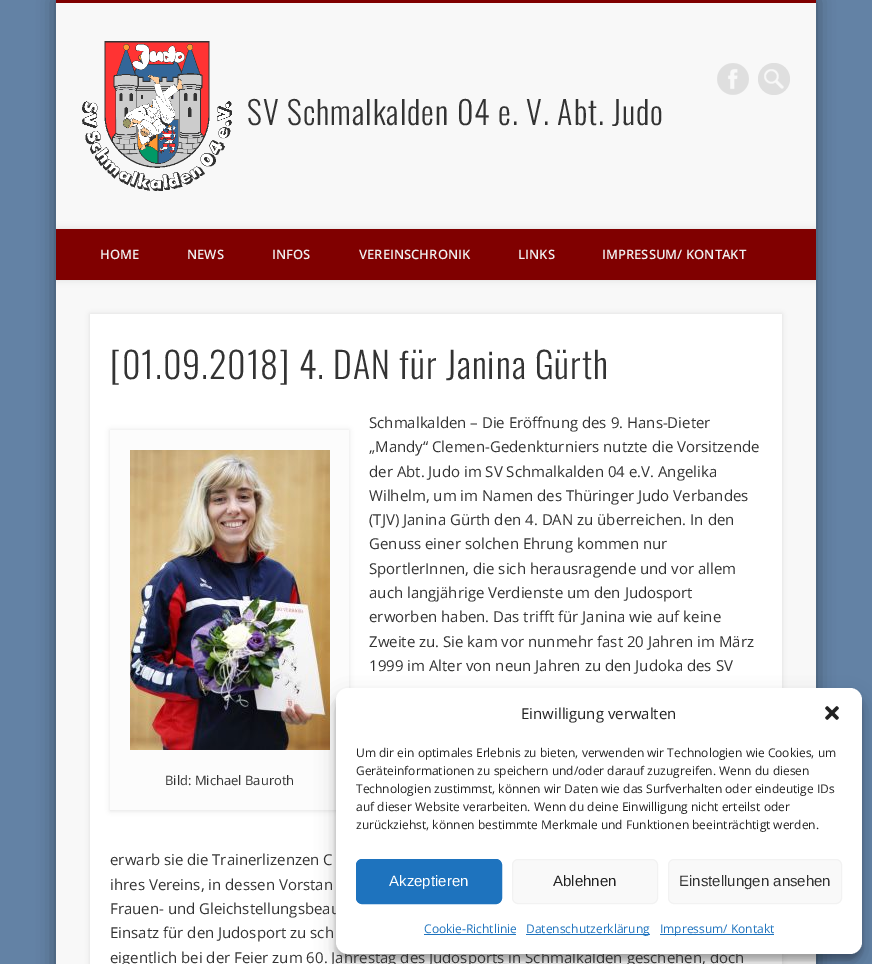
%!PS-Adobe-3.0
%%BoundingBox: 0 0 872 964
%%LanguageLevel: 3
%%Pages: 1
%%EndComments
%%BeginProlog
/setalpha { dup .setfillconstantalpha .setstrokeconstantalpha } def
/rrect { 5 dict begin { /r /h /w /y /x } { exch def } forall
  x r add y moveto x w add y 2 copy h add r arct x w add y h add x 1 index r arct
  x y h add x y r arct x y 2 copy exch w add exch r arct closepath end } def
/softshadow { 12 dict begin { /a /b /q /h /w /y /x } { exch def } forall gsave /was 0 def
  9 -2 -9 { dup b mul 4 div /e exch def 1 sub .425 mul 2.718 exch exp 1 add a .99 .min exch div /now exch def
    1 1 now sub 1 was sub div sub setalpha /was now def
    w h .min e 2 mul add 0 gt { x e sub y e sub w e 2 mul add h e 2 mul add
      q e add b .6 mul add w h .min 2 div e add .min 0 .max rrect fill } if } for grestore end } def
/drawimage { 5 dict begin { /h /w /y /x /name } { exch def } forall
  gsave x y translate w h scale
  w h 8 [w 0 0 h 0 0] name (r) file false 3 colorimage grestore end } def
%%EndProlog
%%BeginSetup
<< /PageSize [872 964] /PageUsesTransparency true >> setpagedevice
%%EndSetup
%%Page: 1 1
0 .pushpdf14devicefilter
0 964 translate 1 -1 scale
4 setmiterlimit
0.388 0.51 0.647 setrgbcolor
0 0 872 964 rectfill
0 setgray
56 0 760 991 0 9 0.4 softshadow
0.973 setgray
56 3 760 961 rectfill
0.502 0 0 setrgbcolor
56 0 760 3 rectfill
(images/1.raw) 717 63 32 32 drawimage
0.875 setgray
newpath 774 79 16 0 360 arc closepath fill
(images/2.raw) 764 69 20 20 drawimage
(images/3.raw) 82 41 150 150 drawimage
gsave
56 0 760 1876 rectclip
0 setgray
56 229 760 51 0 3.5 0.1 softshadow
grestore
0.502 0 0 setrgbcolor
56 229 760 51 rectfill
0 setgray
90 314 692 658 0 2.5 0.1 softshadow
1 setgray
90 314 692 650 rectfill
0 setgray
110 430 239 381 0 2.5 0.1 softshadow
0.988 setgray
110 430 239 380 rectfill
0.933 setgray
110 810 5 1 rectfill
(images/4.raw) 130 450 200 300 drawimage
0 setgray
336 694 526 266 12 3 0.23 softshadow
336 698 526 266 12 10 0.19 softshadow
/Oswald-Light [32 0 0 -32 0 0] selectfont
0.2 setgray
247 125 moveto 1 0 (SV Schmalkalden 04 e. V. Abt. Judo) ashow
/OpenSans-SemiBold [13 0 0 -13 0 0] selectfont
0.941 setgray
100 259 moveto (HOME) show
187 259 moveto (NEWS) show
272 259 moveto (INFOS) show
359 259 moveto (VEREINSCHRONIK) show
518 259 moveto (LINKS) show
602 259 moveto (IMPRESSUM/ KONTAKT) show
/Oswald-Light [36 0 0 -36 0 0] selectfont
0.2 setgray
110 379 moveto 1 0 ([01.09.2018] 4. DAN für Janina Gürth) ashow
/OpenSans-Regular [15 0 0 -15 0 0] selectfont
369 428 moveto (Schmalkalden – Die Eröffnung des 9. Hans-Dieter) show
369 452 moveto („Mandy“ Clemen-Gedenkturniers nutzte die Vorsitzende) show
369 477 moveto (der Abt. Judo im SV Schmalkalden 04 e.V. Angelika) show
369 501 moveto (Wilhelm, um im Namen des Thüringer Judo Verbandes) show
369 525 moveto (\(TJV\) Janina Gürth den 4. DAN zu überreichen. In den) show
369 549 moveto (Genuss einer solchen Ehrung kommen nur) show
369 574 moveto (SportlerInnen, die sich herausragende und vor allem) show
369 598 moveto (auch langjährige Verdienste um den Judosport) show
369 622 moveto (erworben haben. Das trifft für Janina wie auf keine) show
369 647 moveto (Zweite zu. Sie kam vor nunmehr fast 20 Jahren im März) show
369 671 moveto (1999 im Alter von neun Jahren zu den Judoka des SV) show
110 865 moveto (erwarb sie die Trainerlizenzen C) show
110 890 moveto (ihres Vereins, in dessen Vorstan) show
110 914 moveto (Frauen- und Gleichstellungsbeau) show
110 938 moveto (Einsatz für den Judosport zu sch) show
110 963 moveto (eigentlich bei der Feier zum 60. Jahrestag des Judosports in Schmalkalden geschehen, doch) show
/OpenSans-Regular [13 0 0 -13 0 0] selectfont
165 785 moveto (Bild: Michael Bauroth) show
1 setgray
336 688 526 266 12 rrect fill
/OpenSans-Regular [15 0 0 -15 0 0] selectfont
0.133 setgray
521 719 moveto (Einwilligung verwalten) show
(images/5.raw) 825 706 14 14 drawimage
/OpenSans-Regular [12 0 0 -12 0 0] selectfont
356 757 moveto (Um dir ein optimales Erlebnis zu bieten, verwenden wir Technologien wie Cookies, um) show
356 775 moveto (Geräteinformationen zu speichern und/oder darauf zuzugreifen. Wenn du diesen) show
356 793 moveto (Technologien zustimmst, können wir Daten wie das Surfverhalten oder eindeutige IDs) show
356 811 moveto (auf dieser Website verarbeiten. Wenn du deine Einwilligung nicht erteilst oder) show
356 829 moveto (zurückziehst, können bestimmte Merkmale und Funktionen beeinträchtigt werden.) show
0.118 0.451 0.745 setrgbcolor
356.5 859.5 145 44 5.5 rrect gsave fill grestore
stroke
/LiberationSans-Regular [15 0 0 -15 0 0] selectfont
1 setgray
389 886 moveto (Akzeptieren) show
0.976 setgray
512.5 859.5 145 44 5.5 rrect gsave fill grestore
0.949 setgray
stroke
0.133 setgray
553 886 moveto (Ablehnen) show
0.976 setgray
668.5 859.5 173 44 5.5 rrect gsave fill grestore
0.949 setgray
stroke
0.2 setgray
679 886 moveto (Einstellungen ansehen) show
/OpenSans-Regular [12 0 0 -12 0 0] selectfont
0.118 0.451 0.745 setrgbcolor
424 933 moveto (Cookie-Richtlinie) show
424 934 92 1 rectfill
526 934 124 1 rectfill
526 933 moveto (Datenschutzerklärung) show
660 934 114 1 rectfill
660 933 moveto (Impressum/ Kontakt) show
.poppdf14devicefilter showpage
%%EOF
